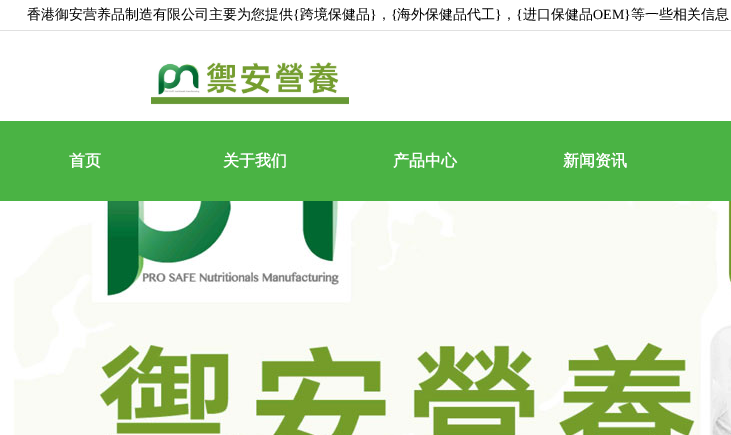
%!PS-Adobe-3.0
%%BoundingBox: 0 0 731 435
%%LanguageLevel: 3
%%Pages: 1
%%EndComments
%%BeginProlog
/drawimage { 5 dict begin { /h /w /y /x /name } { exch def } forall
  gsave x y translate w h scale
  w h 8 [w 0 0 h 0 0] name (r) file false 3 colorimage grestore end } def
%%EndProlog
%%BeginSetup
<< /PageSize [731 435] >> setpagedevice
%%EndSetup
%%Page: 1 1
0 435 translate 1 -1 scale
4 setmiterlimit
1 setgray
0 0 731 435 rectfill
0.878 setgray
0 30 731 1 rectfill
(images/1.raw) 151 61 198 44 drawimage
0.29 0.702 0.267 setrgbcolor
0 121 731 80 rectfill
(images/2.raw) 13 201 718 234 drawimage
/WenQuanYiZenHei-Medium [14 0 0 -14 0 0] selectfont
0 setgray
27 19 moveto (香港御安营养品制造有限公司主要为您提供) show
/LiberationSerif-Regular [14 0 0 -14 0 0] selectfont
293 19 moveto ({) show
/WenQuanYiZenHei-Medium [14 0 0 -14 0 0] selectfont
300 19 moveto (跨境保健品) show
/LiberationSerif-Regular [14 0 0 -14 0 0] selectfont
370 19 moveto (}) show
/WenQuanYiZenHei-Medium [14 0 0 -14 0 0] selectfont
377 19 moveto (，) show
/LiberationSerif-Regular [14 0 0 -14 0 0] selectfont
391 19 moveto ({) show
/WenQuanYiZenHei-Medium [14 0 0 -14 0 0] selectfont
397 19 moveto (海外保健品代工) show
/LiberationSerif-Regular [14 0 0 -14 0 0] selectfont
495 19 moveto (}) show
/WenQuanYiZenHei-Medium [14 0 0 -14 0 0] selectfont
502 19 moveto (，) show
/LiberationSerif-Regular [14 0 0 -14 0 0] selectfont
516 19 moveto ({) show
/WenQuanYiZenHei-Medium [14 0 0 -14 0 0] selectfont
523 19 moveto (进口保健品) show
/LiberationSerif-Regular [14 0 0 -14 0 0] selectfont
593 19 moveto (OEM}) show
/WenQuanYiZenHei-Medium [14 0 0 -14 0 0] selectfont
631 19 moveto (等一些相关信息) show
/WenQuanYiZenHei-Bold [16 0 0 -16 0 0] selectfont
1 setgray
69 166 moveto (首页) show
223 166 moveto (关于我们) show
393 166 moveto (产品中心) show
563 166 moveto (新闻资讯) show
showpage
%%EOF
